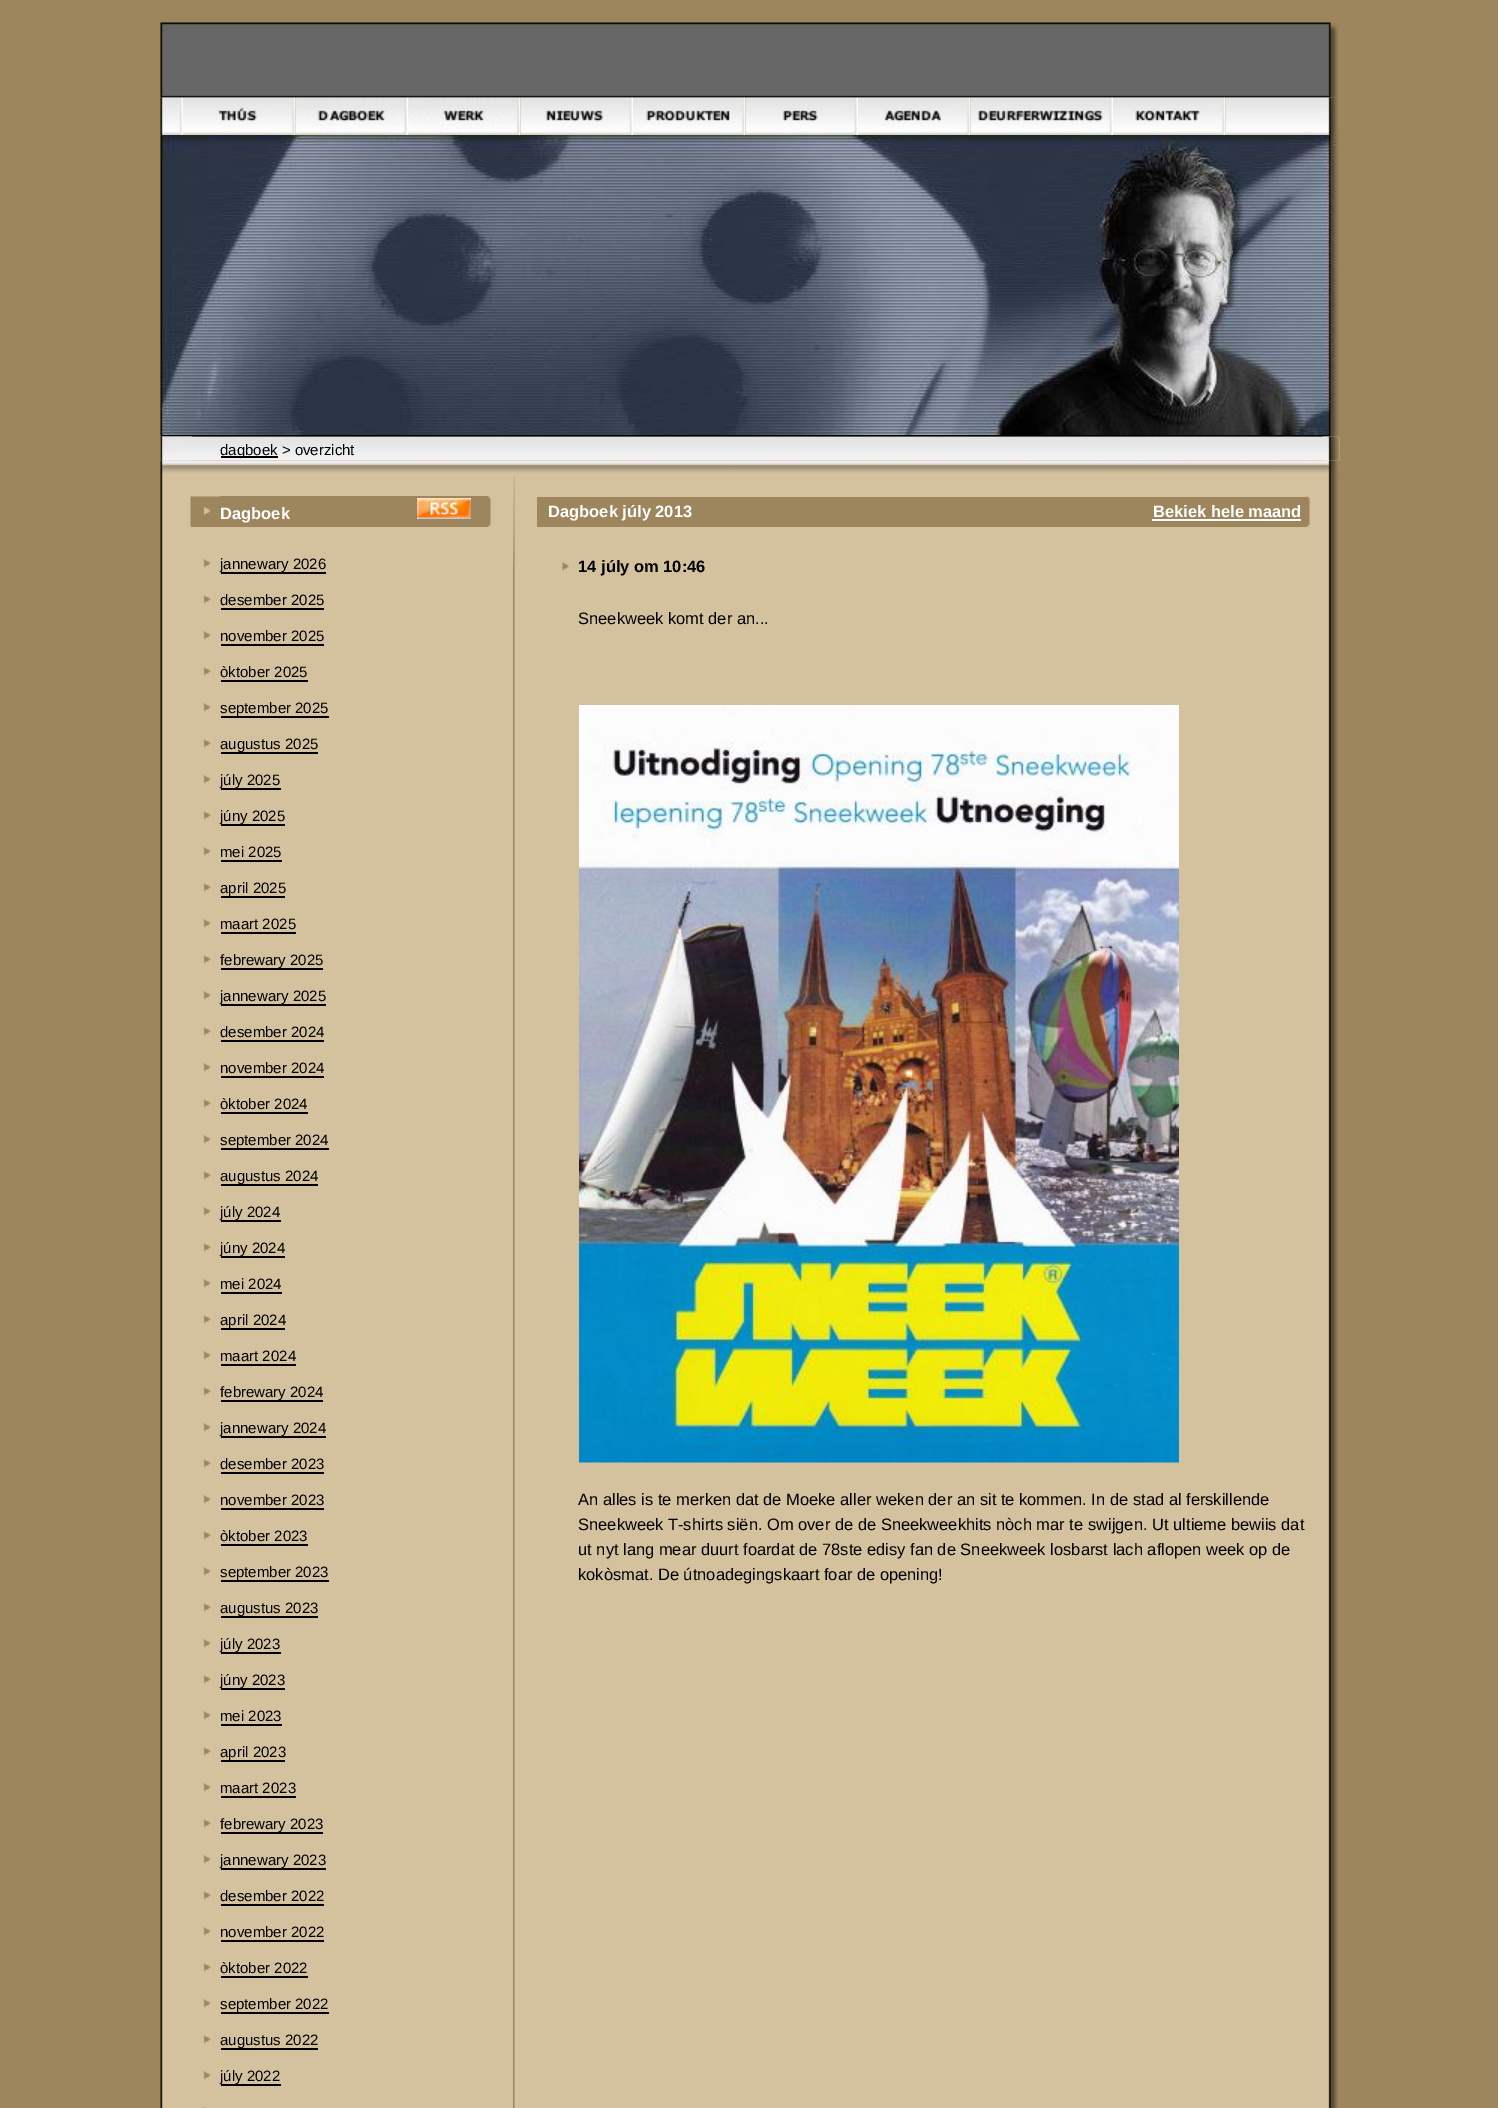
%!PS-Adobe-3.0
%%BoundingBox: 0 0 1498 2108
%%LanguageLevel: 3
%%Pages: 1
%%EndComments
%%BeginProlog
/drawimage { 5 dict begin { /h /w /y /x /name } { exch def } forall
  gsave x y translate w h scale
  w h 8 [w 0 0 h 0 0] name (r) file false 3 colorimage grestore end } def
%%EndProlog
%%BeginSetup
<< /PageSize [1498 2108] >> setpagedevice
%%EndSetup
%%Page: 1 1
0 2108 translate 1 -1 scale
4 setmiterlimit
0.616 0.525 0.365 setrgbcolor
0 0 1498 2108 rectfill
(images/1.raw) 160 22 1179 76 drawimage
(images/2.raw) 160 97 23 38 drawimage
(images/3.raw) 183 97 113 38 drawimage
(images/4.raw) 295 97 113 38 drawimage
(images/5.raw) 408 97 113 38 drawimage
(images/6.raw) 520 97 113 38 drawimage
(images/7.raw) 633 97 113 38 drawimage
(images/8.raw) 745 97 113 38 drawimage
(images/9.raw) 858 97 113 38 drawimage
(images/10.raw) 970 97 143 38 drawimage
(images/12.raw) 1225 97 101 38 drawimage
(images/11.raw) 1113 97 113 38 drawimage
(images/13.raw) 1326 97 13 38 drawimage
(images/14.raw) 160 135 1179 300 drawimage
(images/16.raw) 160 436 1180 25 drawimage
(images/15.raw) 160 435 1180 2 drawimage
(images/17.raw) 160 436 32 25 drawimage
0 setgray
221 456 57 2 rectfill
(images/18.raw) 1323 436 17 25 drawimage
(images/19.raw) 160 460 1180 14 drawimage
(images/20.raw) 160 474 8 1634 drawimage
0.831 0.761 0.624 setrgbcolor
168 474 1154 1634 rectfill
0.616 0.525 0.365 setrgbcolor
191 526 29 1 rectfill
(images/21.raw) 190 496 30 31 drawimage
220 496 268 31 rectfill
(images/22.raw) 417 498 54 21 drawimage
(images/23.raw) 488 496 3 31 drawimage
(images/24.raw) 203 559 8 9 drawimage
0 setgray
221 572 105 2 rectfill
(images/24.raw) 203 595 8 9 drawimage
221 608 103 2 rectfill
(images/24.raw) 203 631 8 9 drawimage
221 644 103 2 rectfill
(images/24.raw) 203 667 8 9 drawimage
221 680 87 2 rectfill
(images/24.raw) 203 703 8 9 drawimage
221 716 108 2 rectfill
(images/24.raw) 203 739 8 9 drawimage
221 752 97 2 rectfill
(images/24.raw) 203 775 8 9 drawimage
221 788 60 2 rectfill
(images/24.raw) 203 811 8 9 drawimage
221 824 64 2 rectfill
(images/24.raw) 203 847 8 9 drawimage
221 860 61 2 rectfill
(images/24.raw) 203 883 8 9 drawimage
221 896 64 2 rectfill
(images/24.raw) 203 919 8 9 drawimage
221 932 75 2 rectfill
(images/24.raw) 203 955 8 9 drawimage
221 968 102 2 rectfill
(images/24.raw) 203 991 8 9 drawimage
221 1004 105 2 rectfill
(images/24.raw) 203 1027 8 9 drawimage
221 1040 103 2 rectfill
(images/24.raw) 203 1063 8 9 drawimage
221 1076 103 2 rectfill
(images/24.raw) 203 1099 8 9 drawimage
221 1112 87 2 rectfill
(images/24.raw) 203 1135 8 9 drawimage
221 1148 108 2 rectfill
(images/24.raw) 203 1171 8 9 drawimage
221 1184 97 2 rectfill
(images/24.raw) 203 1207 8 9 drawimage
221 1220 60 2 rectfill
(images/24.raw) 203 1243 8 9 drawimage
221 1256 64 2 rectfill
(images/24.raw) 203 1279 8 9 drawimage
221 1292 61 2 rectfill
(images/24.raw) 203 1315 8 9 drawimage
221 1328 64 2 rectfill
(images/24.raw) 203 1351 8 9 drawimage
221 1364 75 2 rectfill
(images/24.raw) 203 1387 8 9 drawimage
221 1400 102 2 rectfill
(images/24.raw) 203 1423 8 9 drawimage
221 1436 105 2 rectfill
(images/24.raw) 203 1459 8 9 drawimage
221 1472 103 2 rectfill
(images/24.raw) 203 1495 8 9 drawimage
221 1508 103 2 rectfill
(images/24.raw) 203 1531 8 9 drawimage
221 1544 87 2 rectfill
(images/24.raw) 203 1567 8 9 drawimage
221 1580 108 2 rectfill
(images/24.raw) 203 1603 8 9 drawimage
221 1616 97 2 rectfill
(images/24.raw) 203 1639 8 9 drawimage
221 1652 60 2 rectfill
(images/24.raw) 203 1675 8 9 drawimage
221 1688 64 2 rectfill
(images/24.raw) 203 1711 8 9 drawimage
221 1724 61 2 rectfill
(images/24.raw) 203 1747 8 9 drawimage
221 1760 64 2 rectfill
(images/24.raw) 203 1783 8 9 drawimage
221 1796 75 2 rectfill
(images/24.raw) 203 1819 8 9 drawimage
221 1832 102 2 rectfill
(images/24.raw) 203 1855 8 9 drawimage
221 1868 105 2 rectfill
(images/24.raw) 203 1891 8 9 drawimage
221 1904 103 2 rectfill
(images/24.raw) 203 1927 8 9 drawimage
221 1940 103 2 rectfill
(images/24.raw) 203 1963 8 9 drawimage
221 1976 87 2 rectfill
(images/24.raw) 203 1999 8 9 drawimage
221 2012 108 2 rectfill
(images/24.raw) 203 2035 8 9 drawimage
221 2048 97 2 rectfill
(images/24.raw) 203 2071 8 9 drawimage
221 2084 60 2 rectfill
(images/25.raw) 203 2107 3 1 drawimage
(images/26.raw) 513 474 2 1634 drawimage
(images/27.raw) 513 474 2 90 drawimage
0.616 0.525 0.365 setrgbcolor
537 497 770 30 rectfill
(images/28.raw) 1306 496 4 31 drawimage
1 setgray
1152 519 149 2 rectfill
(images/29.raw) 562 562 7 9 drawimage
(images/30.raw) 579 705 600 758 drawimage
(images/31.raw) 1322 474 17 1634 drawimage
/LiberationSans-Regular [15 0 0 -15 0 0] selectfont
0 setgray
220 455 moveto (dagboek > overzicht) show
/LiberationSans-Bold [16.5 0 0 -16.5 0 0] selectfont
1 setgray
220 519 moveto (Dagboek) show
/LiberationSans-Regular [15 0 0 -15 0 0] selectfont
0 setgray
220 569 moveto (jannewary 2026) show
220 605 moveto (desember 2025) show
220 641 moveto (november 2025) show
220 677 moveto (òktober 2025) show
220 713 moveto (september 2025) show
220 749 moveto (augustus 2025) show
220 785 moveto (júly 2025) show
220 821 moveto (júny 2025) show
220 857 moveto (mei 2025) show
220 893 moveto (april 2025) show
220 929 moveto (maart 2025) show
220 965 moveto (febrewary 2025) show
220 1001 moveto (jannewary 2025) show
220 1037 moveto (desember 2024) show
220 1073 moveto (november 2024) show
220 1109 moveto (òktober 2024) show
220 1145 moveto (september 2024) show
220 1181 moveto (augustus 2024) show
220 1217 moveto (júly 2024) show
220 1253 moveto (júny 2024) show
220 1289 moveto (mei 2024) show
220 1325 moveto (april 2024) show
220 1361 moveto (maart 2024) show
220 1397 moveto (febrewary 2024) show
220 1433 moveto (jannewary 2024) show
220 1469 moveto (desember 2023) show
220 1505 moveto (november 2023) show
220 1541 moveto (òktober 2023) show
220 1577 moveto (september 2023) show
220 1613 moveto (augustus 2023) show
220 1649 moveto (júly 2023) show
220 1685 moveto (júny 2023) show
220 1721 moveto (mei 2023) show
220 1757 moveto (april 2023) show
220 1793 moveto (maart 2023) show
220 1829 moveto (febrewary 2023) show
220 1865 moveto (jannewary 2023) show
220 1901 moveto (desember 2022) show
220 1937 moveto (november 2022) show
220 1973 moveto (òktober 2022) show
220 2009 moveto (september 2022) show
220 2045 moveto (augustus 2022) show
220 2081 moveto (júly 2022) show
/LiberationSans-Bold [16.5 0 0 -16.5 0 0] selectfont
1 setgray
548 517 moveto (Dagboek júly 2013) show
1153 517 moveto (Bekiek hele maand) show
0 setgray
578 572 moveto (14 júly om 10:46) show
/LiberationSans-Regular [16.5 0 0 -16.5 0 0] selectfont
578 624 moveto (Sneekweek komt der an...) show
578 1505 moveto (An alles is te merken dat de Moeke aller weken der an sit te kommen. In de stad al ferskillende) show
578 1530 moveto (Sneekweek T-shirts siën. Om over de de Sneekweekhits nòch mar te swijgen. Ut ultieme bewiis dat) show
578 1555 moveto (ut nyt lang mear duurt foardat de 78ste edisy fan de Sneekweek losbarst lach aflopen week op de) show
578 1580 moveto (kokòsmat. De útnoadegingskaart foar de opening!) show
showpage
%%EOF
